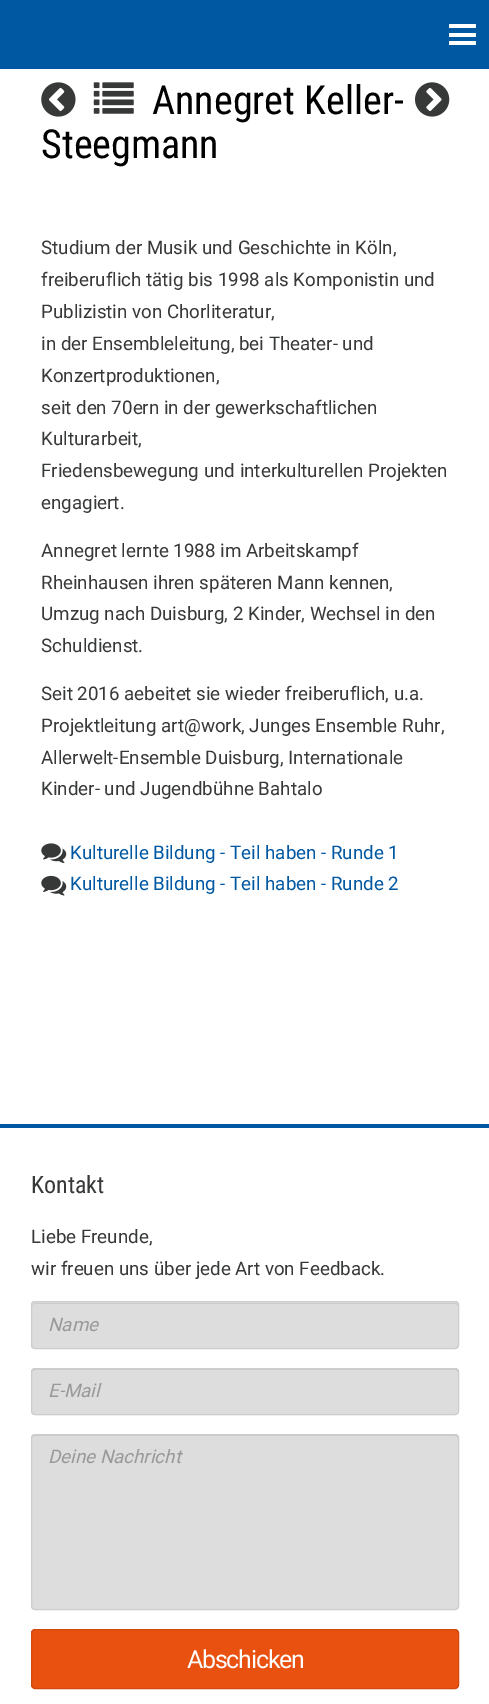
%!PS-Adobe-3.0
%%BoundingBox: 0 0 489 1704
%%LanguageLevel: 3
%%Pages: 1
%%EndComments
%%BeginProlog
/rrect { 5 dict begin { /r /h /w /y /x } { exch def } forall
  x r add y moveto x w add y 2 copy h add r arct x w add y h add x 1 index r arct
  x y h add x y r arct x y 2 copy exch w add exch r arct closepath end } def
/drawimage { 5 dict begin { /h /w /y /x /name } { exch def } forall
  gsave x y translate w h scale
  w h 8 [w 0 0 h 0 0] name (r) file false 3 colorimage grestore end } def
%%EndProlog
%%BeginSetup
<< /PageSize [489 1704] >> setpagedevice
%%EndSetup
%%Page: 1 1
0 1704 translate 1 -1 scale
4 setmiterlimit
1 setgray
0 0 489 1704 rectfill
0 0.341 0.635 setrgbcolor
0 0 489 69 rectfill
1 setgray
449 24 27 4 1 rrect fill
449 33 27 4 1 rrect fill
449 41 27 4 1 rrect fill
(images/1.raw) 41 82 35 35 drawimage
(images/2.raw) 93 82 41 32 drawimage
(images/3.raw) 415 82 35 35 drawimage
(images/4.raw) 41 843 26 20 drawimage
(images/5.raw) 41 875 26 21 drawimage
0 0.341 0.635 setrgbcolor
0 1124 489 4 rectfill
0.867 setgray
31 1301 428 48 4 rrect fill
0.8 setgray
newpath 35 1304 moveto 455 1304 lineto 456 1304 458 1305 458 1306 curveto 458 1304 457 1303 456 1303 curveto 36 1303 lineto 34 1303 34 1304 33 1305 curveto closepath fill
31.5 1301.5 427 47 3.5 rrect stroke
0.867 setgray
31 1368 428 47 4 rrect fill
0.8 setgray
newpath 35 1370 moveto 455 1370 lineto 456 1370 458 1371 458 1372 curveto 458 1370 457 1369 456 1369 curveto 36 1369 lineto 34 1369 34 1370 33 1371 curveto closepath fill
31.5 1368.5 427 46 3.5 rrect stroke
0.867 setgray
31 1434 428 176 4 rrect fill
0.8 setgray
newpath 35 1436 moveto 455 1436 lineto 456 1436 458 1437 458 1439 curveto 458 1437 458 1435 456 1435 curveto 35 1435 lineto 33 1437 lineto closepath fill
31.5 1434.5 427 175 3.5 rrect stroke
0.914 0.318 0.063 setrgbcolor
31.5 1629.5 427 59 3.5 rrect gsave fill grestore
0.82 0.286 0.055 setrgbcolor
stroke
/RobotoCondensed-Regular [40 0 0 -40 0 0] selectfont
0 setgray
152 114 moveto (Annegret Keller-) show
41 158 moveto (Steegmann) show
/Roboto-Regular [18.75 0 0 -18.75 0 0] selectfont
0.216 0.22 0.22 setrgbcolor
41 254 moveto (Studium der Musik und Geschichte in Köln,) show
41 286 moveto (freiberuflich tätig bis 1998 als Komponistin und) show
41 318 moveto (Publizistin von Chorliteratur,) show
41 350 moveto (in der Ensembleleitung, bei Theater- und) show
41 382 moveto (Konzertproduktionen,) show
41 414 moveto (seit den 70ern in der gewerkschaftlichen) show
41 445 moveto (Kulturarbeit,) show
41 477 moveto (Friedensbewegung und interkulturellen Projekten) show
41 509 moveto (engagiert.) show
41 557 moveto (Annegret lernte 1988 im Arbeitskampf) show
41 589 moveto (Rheinhausen ihren späteren Mann kennen,) show
41 620 moveto (Umzug nach Duisburg, 2 Kinder, Wechsel in den) show
41 652 moveto (Schuldienst.) show
41 700 moveto (Seit 2016 aebeitet sie wieder freiberuflich, u.a.) show
41 732 moveto (Projektleitung art@work, Junges Ensemble Ruhr,) show
41 764 moveto (Allerwelt-Ensemble Duisburg, Internationale) show
41 795 moveto (Kinder- und Jugendbühne Bahtalo) show
0 0.341 0.635 setrgbcolor
70 859 moveto (Kulturelle Bildung - Teil haben - Runde 1) show
70 890 moveto (Kulturelle Bildung - Teil haben - Runde 2) show
/RobotoCondensed-Regular [24 0 0 -24 0 0] selectfont
0.216 0.22 0.22 setrgbcolor
31 1193 moveto (Kontakt) show
/Roboto-Regular [18.75 0 0 -18.75 0 0] selectfont
31 1243 moveto (Liebe Freunde,) show
31 1275 moveto (wir freuen uns über jede Art von Feedback.) show
/Roboto-Italic [18.75 0 0 -18.75 0 0] selectfont
0.6 setgray
48 1331 moveto (Name) show
48 1397 moveto (E-Mail) show
48 1463 moveto (Deine Nachricht) show
/Roboto-Regular [25 0 0 -25 0 0] selectfont
1 setgray
187 1668 moveto -1.25 0 (Abschicken) ashow
showpage
%%EOF
